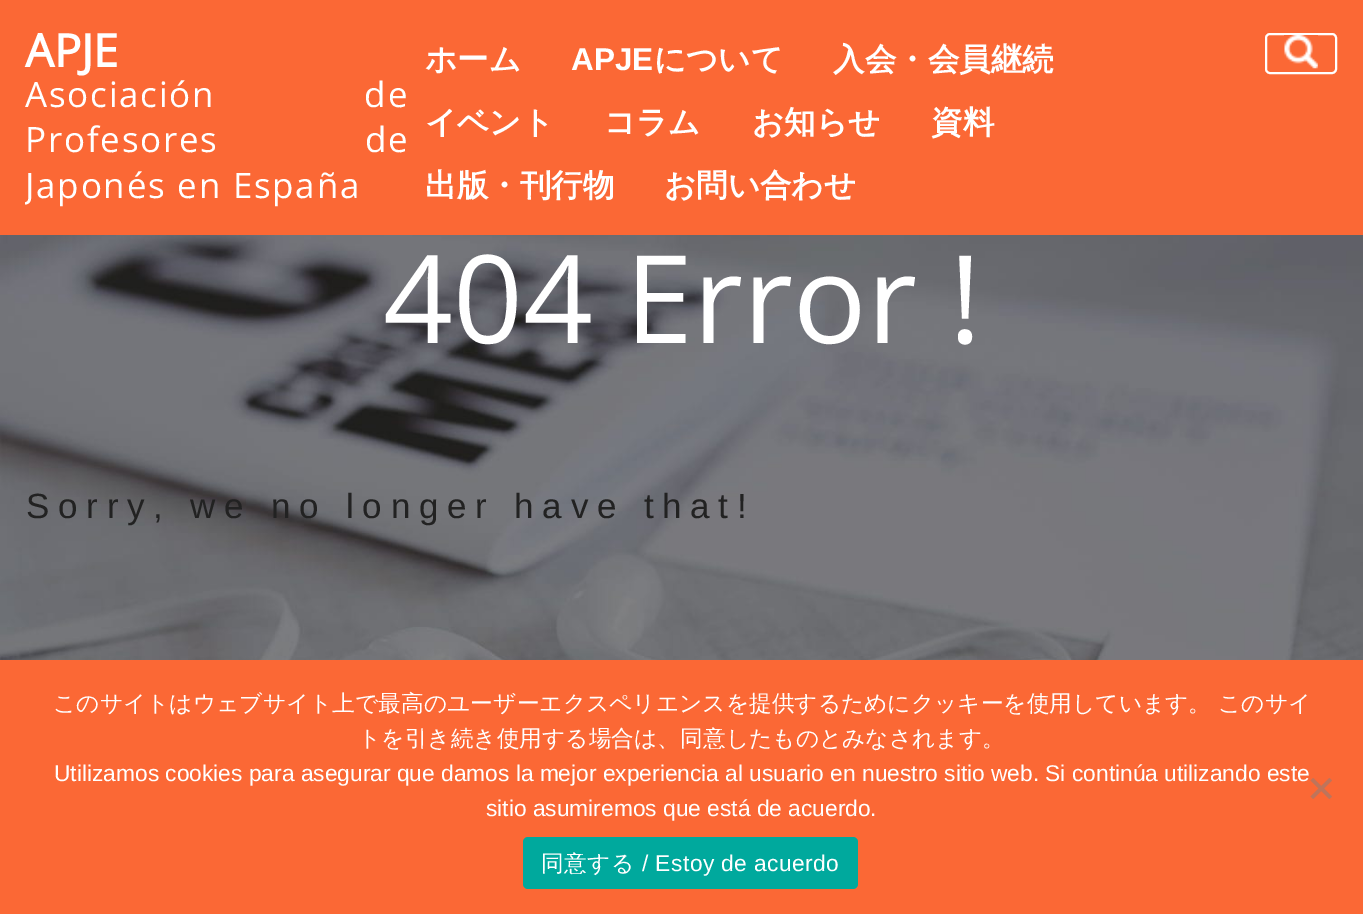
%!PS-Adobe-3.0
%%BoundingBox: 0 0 1363 914
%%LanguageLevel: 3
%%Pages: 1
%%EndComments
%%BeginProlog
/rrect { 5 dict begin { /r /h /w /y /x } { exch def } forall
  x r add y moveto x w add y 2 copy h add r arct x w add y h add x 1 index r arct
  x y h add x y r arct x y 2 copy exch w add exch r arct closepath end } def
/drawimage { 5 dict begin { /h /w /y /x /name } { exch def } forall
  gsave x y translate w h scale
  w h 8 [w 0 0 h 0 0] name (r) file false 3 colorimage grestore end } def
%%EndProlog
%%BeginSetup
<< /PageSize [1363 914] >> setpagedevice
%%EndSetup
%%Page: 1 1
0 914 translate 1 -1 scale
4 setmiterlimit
1 setgray
0 0 1363 914 rectfill
0.984 0.408 0.208 setrgbcolor
0 0 1363 235 rectfill
1 setgray
2 setlinewidth
1266 34 70 39 4 rrect stroke
(images/1.raw) 1284 35 34 34 drawimage
(images/2.raw) 0 235 1363 425 drawimage
0.984 0.408 0.208 setrgbcolor
0 660 1363 254 rectfill
0.745 0.455 0.357 setrgbcolor
newpath 1329.5 778 moveto 1332 780.5 lineto 1313 799 lineto 1310.5 796.5 lineto closepath fill
newpath 1310.5 780.5 moveto 1313 778 lineto 1332 796.5 lineto 1329.5 799 lineto closepath fill
0 0.663 0.616 setrgbcolor
523 837 335 52 5 rrect fill
/OpenSans-Bold [45.5 0 0 -45.5 0 0] selectfont
1 setgray
25 67 moveto (APJE) show
/OpenSans-Regular [35 0 0 -35 0 0] selectfont
25 107 moveto 138 0 32 1.75 0 (Asociación de) awidthshow
25 152 moveto 135 0 32 1.75 0 (Profesores de) awidthshow
gsave
25 26 385 209 rectclip
25 198 moveto 1.75 0 (Japonés en España) ashow
grestore
/WenQuanYiZenHei-Bold [31.5 0 0 -31.5 0 0] selectfont
425 70 moveto (ホーム) show
/LiberationSans-Bold [31.5 0 0 -31.5 0 0] selectfont
571 70 moveto (APJE) show
/WenQuanYiZenHei-Bold [31.5 0 0 -31.5 0 0] selectfont
654 70 moveto (について) show
833 70 moveto (入会・会員継続) show
425 133 moveto (イベント) show
604 133 moveto (コラム) show
752 133 moveto (お知らせ) show
931 133 moveto (資料) show
425 196 moveto (出版・刊行物) show
664 196 moveto (お問い合わせ) show
/OpenSans-Regular [122.5 0 0 -122.5 0 0] selectfont
383 343 moveto (404 Error !) show
/LiberationSans-Regular [35 0 0 -35 0 0] selectfont
0.133 setgray
26 518 moveto 8.75 0 (Sorry, we no longer have that!) ashow
/WenQuanYiZenHei-Medium [22.75 0 0 -22.75 0 0] selectfont
1 setgray
53 711 moveto (このサイトはウェブサイト上で最高のユーザーエクスペリエンスを提供するためにクッキーを使用しています。 このサイ) show
358 746 moveto (トを引き続き使用する場合は、同意したものとみなされます。) show
/LiberationSans-Regular [22.75 0 0 -22.75 0 0] selectfont
54 781 moveto (Utilizamos cookies para asegurar que damos la mejor experiencia al usuario en nuestro sitio web. Si continúa utilizando este) show
486 816 moveto (sitio asumiremos que está de acuerdo.) show
/WenQuanYiZenHei-Medium [22.75 0 0 -22.75 0 0] selectfont
541 871 moveto 0.4 0 (同意する) ashow
/LiberationSans-Regular [22.75 0 0 -22.75 0 0] selectfont
642 871 moveto 0.4 0 (/ Estoy de acuerdo) ashow
showpage
%%EOF
